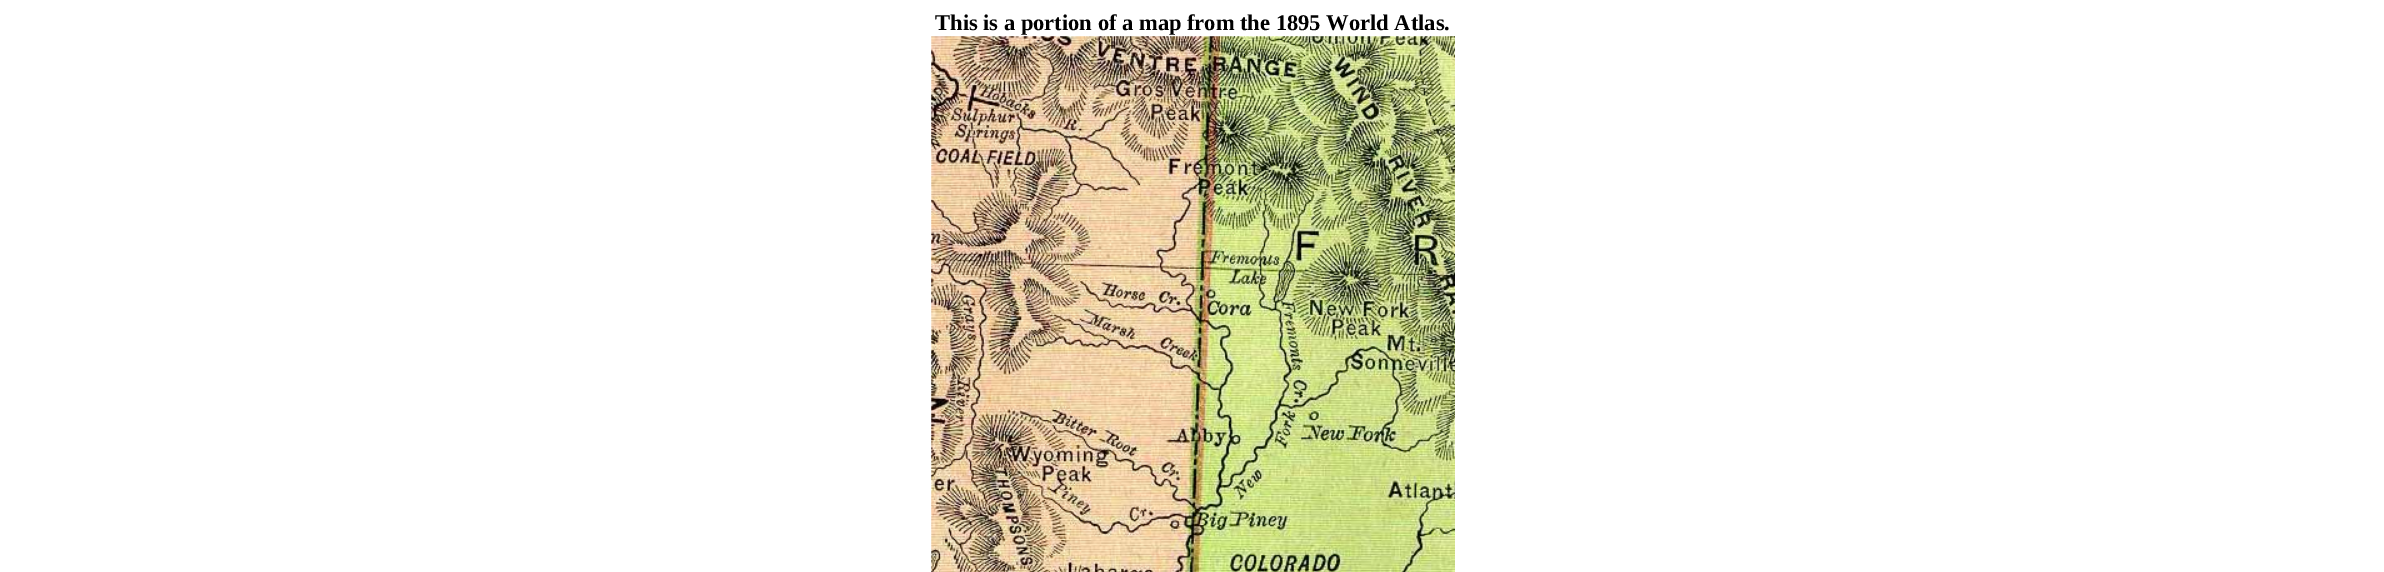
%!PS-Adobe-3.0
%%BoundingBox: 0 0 2384 572
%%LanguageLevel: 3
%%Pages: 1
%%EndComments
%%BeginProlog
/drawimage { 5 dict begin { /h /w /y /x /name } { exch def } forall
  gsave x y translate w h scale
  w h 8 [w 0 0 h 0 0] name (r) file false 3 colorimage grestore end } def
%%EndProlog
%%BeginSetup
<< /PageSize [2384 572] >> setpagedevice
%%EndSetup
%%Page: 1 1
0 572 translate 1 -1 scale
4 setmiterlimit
1 setgray
0 0 2384 572 rectfill
(images/1.raw) 931 36 524 536 drawimage
/LiberationSerif-Bold [22.5 0 0 -22.5 0 0] selectfont
0 setgray
935 30 moveto (This is a portion of a map from the 1895 World Atlas.) show
showpage
%%EOF
